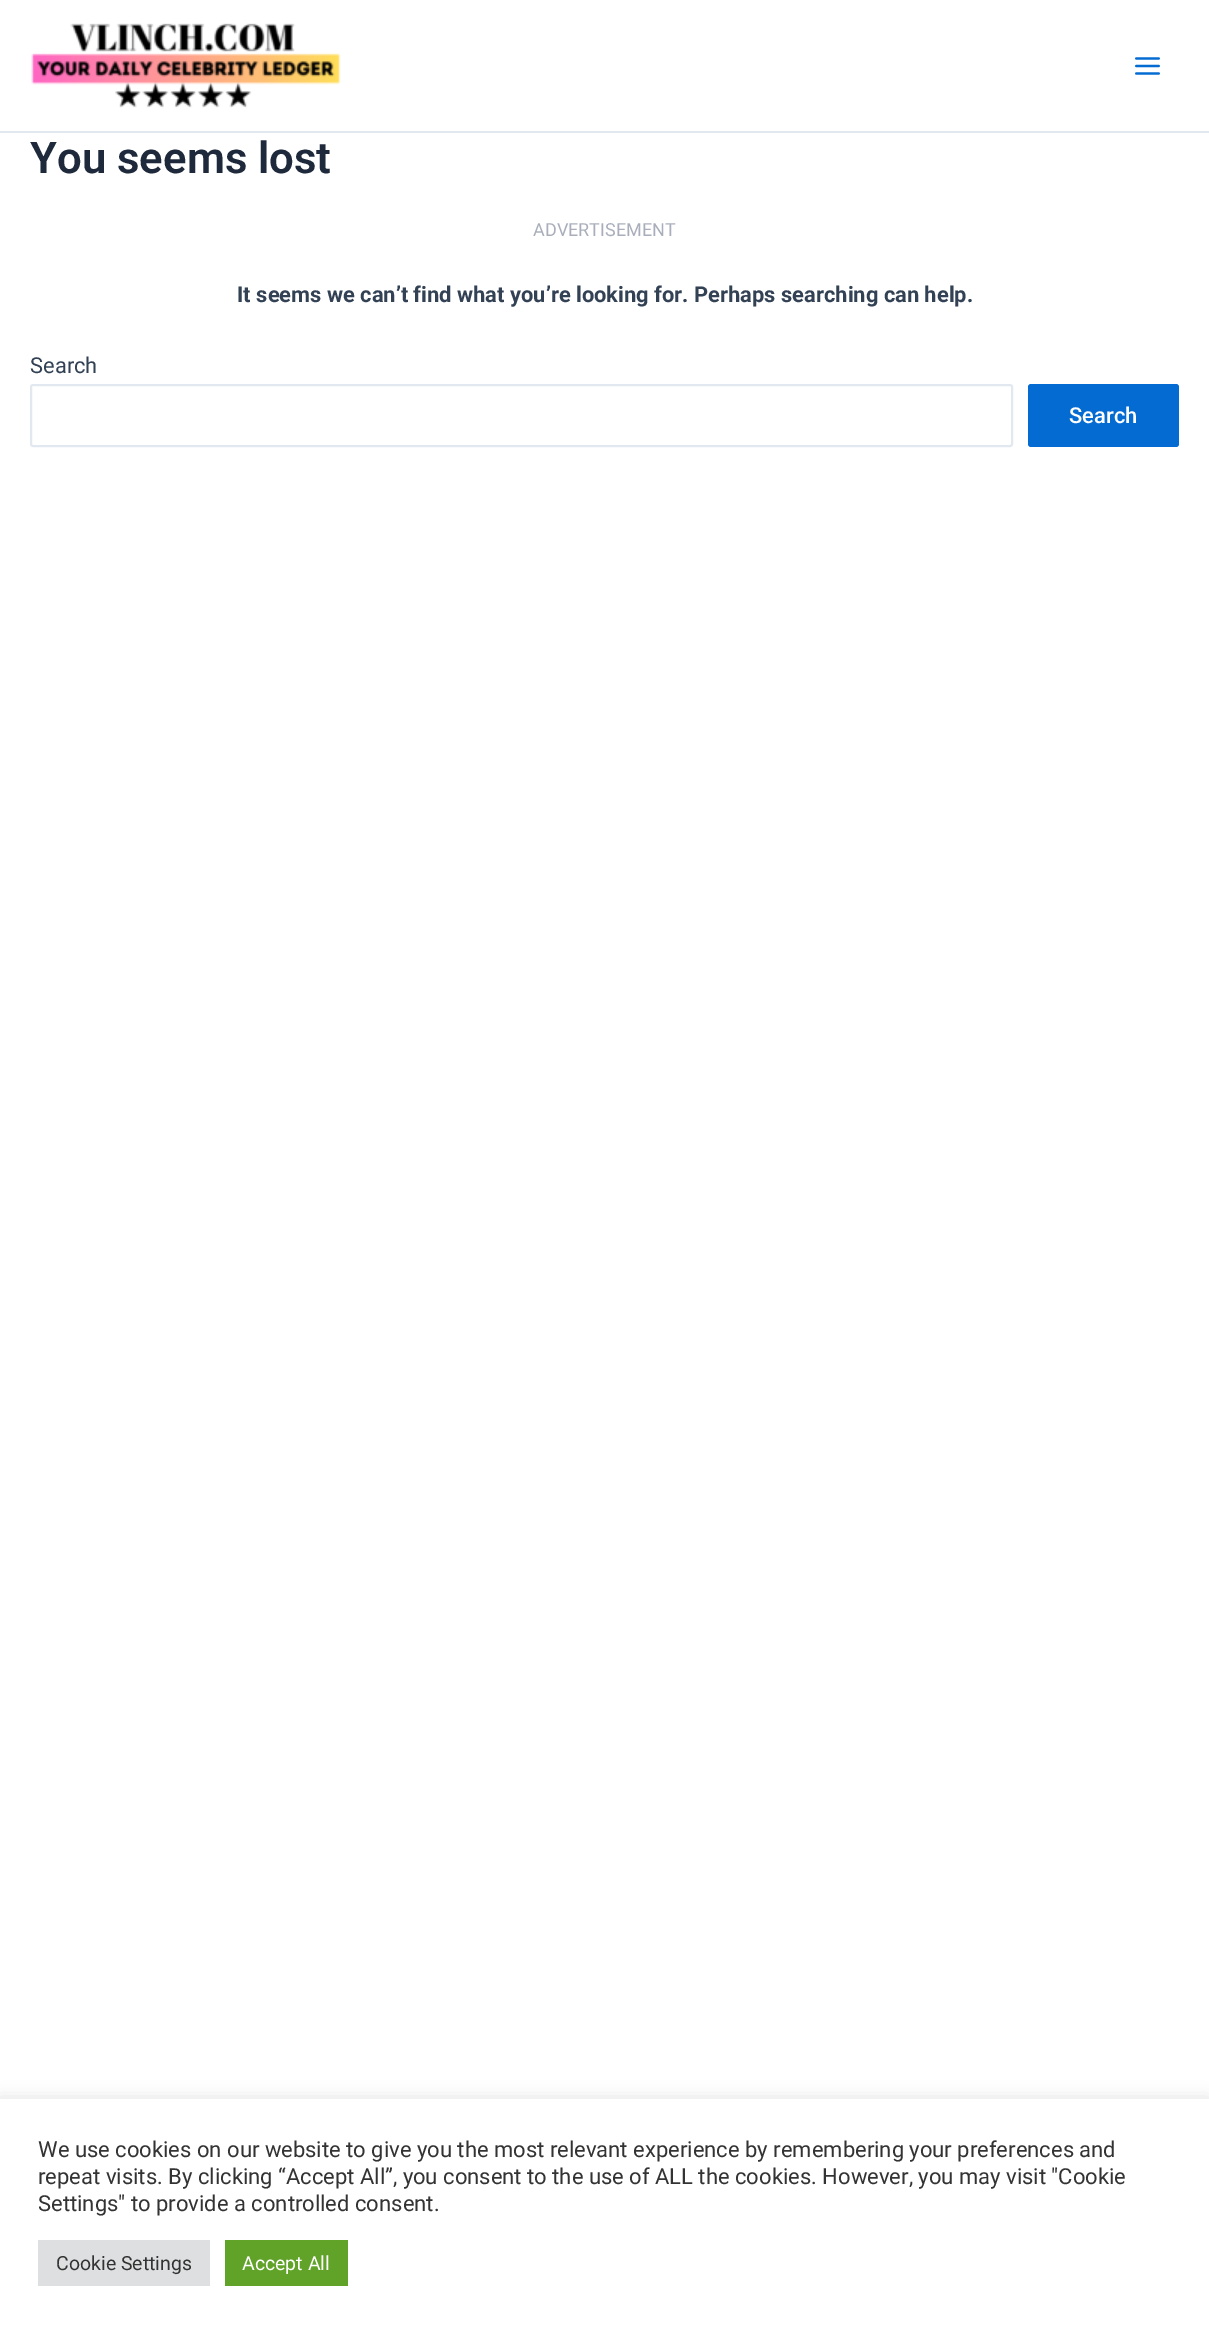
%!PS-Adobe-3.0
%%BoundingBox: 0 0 1209 2331
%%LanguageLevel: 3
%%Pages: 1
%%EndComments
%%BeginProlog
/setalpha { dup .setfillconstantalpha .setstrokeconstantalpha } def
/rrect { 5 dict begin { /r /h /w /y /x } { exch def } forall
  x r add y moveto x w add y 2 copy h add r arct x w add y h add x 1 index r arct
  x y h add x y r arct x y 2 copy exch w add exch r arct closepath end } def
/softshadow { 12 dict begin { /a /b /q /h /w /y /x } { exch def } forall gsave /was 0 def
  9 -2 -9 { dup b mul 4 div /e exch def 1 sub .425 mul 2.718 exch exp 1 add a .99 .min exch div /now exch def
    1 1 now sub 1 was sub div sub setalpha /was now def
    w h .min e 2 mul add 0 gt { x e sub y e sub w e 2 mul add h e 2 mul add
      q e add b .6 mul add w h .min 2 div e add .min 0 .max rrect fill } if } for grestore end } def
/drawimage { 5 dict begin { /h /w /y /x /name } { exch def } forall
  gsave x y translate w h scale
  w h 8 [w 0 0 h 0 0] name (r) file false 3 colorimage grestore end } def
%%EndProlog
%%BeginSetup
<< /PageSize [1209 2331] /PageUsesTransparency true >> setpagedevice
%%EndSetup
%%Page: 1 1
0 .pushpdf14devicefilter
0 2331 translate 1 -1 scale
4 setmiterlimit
1 setgray
0 0 1209 2331 rectfill
0.886 0.91 0.941 setrgbcolor
0 131 1209 2 rectfill
(images/1.raw) 31 23 310 85 drawimage
(images/2.raw) 1135 57 25 18 drawimage
2 setlinewidth
31 385 981 61 2 rrect stroke
0.016 0.42 0.824 setrgbcolor
1028 384 151 63 3 rrect fill
0.675 0.671 0.671 setrgbcolor
0 2097 1209 233 0 7.5 0.3 softshadow
1 setgray
0 2099 1209 232 rectfill
0.871 0.875 0.878 setrgbcolor
38 2240 172 46 rectfill
0.38 0.635 0.161 setrgbcolor
225 2240 123 46 rectfill
/Roboto-SemiBold [43.75 0 0 -43.75 0 0] selectfont
0.118 0.161 0.231 setrgbcolor
30 173 moveto (You seems lost) show
/Roboto-Regular [18 0 0 -18 0 0] selectfont
0.663 0.682 0.729 setrgbcolor
533 236 moveto (ADVERTISEMENT) show
/Roboto-Bold [21.9 0 0 -21.9 0 0] selectfont
0.2 0.255 0.333 setrgbcolor
237 302 moveto (It seems we can’t find what you’re looking for. Perhaps searching can help.) show
/Roboto-Regular [21.9 0 0 -21.9 0 0] selectfont
30 373 moveto (Search) show
/Roboto-Medium [21.9 0 0 -21.9 0 0] selectfont
1 setgray
1069 423 moveto (Search) show
/Roboto-Regular [22 0 0 -22 0 0] selectfont
0.2 setgray
38 2157 moveto (We use cookies on our website to give you the most relevant experience by remembering your preferences and) show
38 2184 moveto (repeat visits. By clicking “Accept All”, you consent to the use of ALL the cookies. However, you may visit "Cookie) show
38 2211 moveto (Settings" to provide a controlled consent.) show
/Roboto-Regular [19.5 0 0 -19.5 0 0] selectfont
56 2270 moveto (Cookie Settings) show
1 setgray
242 2270 moveto (Accept All) show
.poppdf14devicefilter showpage
%%EOF
